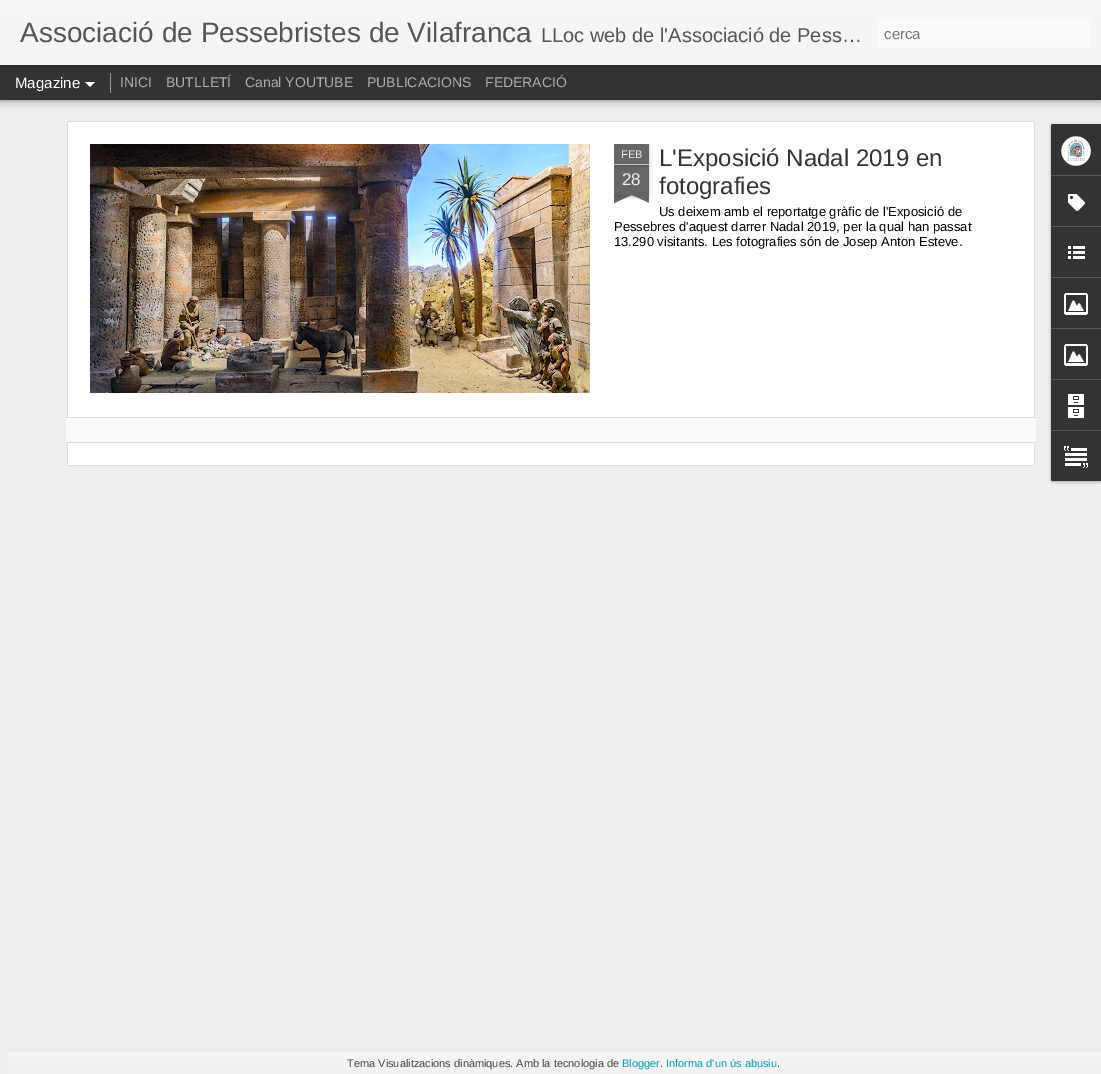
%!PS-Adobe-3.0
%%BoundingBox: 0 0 1101 1074
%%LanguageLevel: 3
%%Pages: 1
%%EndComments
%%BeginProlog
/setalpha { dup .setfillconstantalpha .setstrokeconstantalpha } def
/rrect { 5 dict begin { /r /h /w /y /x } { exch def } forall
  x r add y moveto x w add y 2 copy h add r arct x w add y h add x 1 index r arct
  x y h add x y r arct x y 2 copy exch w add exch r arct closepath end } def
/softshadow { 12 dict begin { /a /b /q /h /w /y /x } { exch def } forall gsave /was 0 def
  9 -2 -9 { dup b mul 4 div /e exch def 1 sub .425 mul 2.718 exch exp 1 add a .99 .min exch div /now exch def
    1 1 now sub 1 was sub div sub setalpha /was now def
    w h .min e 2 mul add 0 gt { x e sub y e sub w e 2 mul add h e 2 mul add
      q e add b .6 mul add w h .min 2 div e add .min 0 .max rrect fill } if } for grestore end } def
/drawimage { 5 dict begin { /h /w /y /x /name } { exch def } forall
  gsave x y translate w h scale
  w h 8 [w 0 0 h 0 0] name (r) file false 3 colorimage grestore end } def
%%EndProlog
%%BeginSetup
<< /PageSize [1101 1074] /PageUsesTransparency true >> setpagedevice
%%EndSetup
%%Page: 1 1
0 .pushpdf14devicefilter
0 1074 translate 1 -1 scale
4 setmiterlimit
0.933 setgray
0 0 1101 1074 rectfill
0 setgray
0 65 1101 35 0 4 0.5 softshadow
0.2 setgray
0 65 1101 35 rectfill
0.6 setgray
110 73 1 20 rectfill
0 setgray
0 0 1101 65 0 2.5 0.3 softshadow
gsave newpath 0 0 moveto 1101 0 lineto 1101 65 lineto 0 65 lineto closepath clip newpath
<< /ShadingType 2 /ColorSpace /DeviceRGB /Coords [0 0 0 65] /Extend [true true] /Function << /FunctionType 2 /Domain [0 1] /C0 [0.969 0.969 0.969] /C1 [0.957 0.957 0.957] /N 1 >> >> shfill grestore
0.98 setgray
877 18 214 30 3 rrect fill
1 setgray
newpath 85 82 moveto 95 82 lineto 90 87 lineto closepath fill
66 120 970 347 rectfill
(images/1.raw) 66 120 970 347 drawimage
(images/2.raw) 90 144 500 249 drawimage
gsave
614 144 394 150 rectclip
0 setgray
614 165 35 30 0 2.5 0.2 softshadow
grestore
0.4 setgray
614 165 35 30 rectfill
gsave
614 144 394 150 rectclip
0 setgray
614 144 35 21 1 2.5 0.2 softshadow
grestore
newpath 615 144 moveto 648 144 lineto 648.5 144 649 144.5 649 145 curveto 649 165 lineto 614 165 lineto 614 145 lineto 614 144.5 614.5 144 615 144 curveto closepath fill
0.761 setgray
614 164 35 1 rectfill
gsave
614 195 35 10 rectclip
0 setgray
605 185 50 10 0 2.5 0.2 softshadow
grestore
gsave
614 195 35 10 rectclip
0.4 setgray
newpath 605 196 moveto 651 175 lineto 655 184 lineto 610 205 lineto closepath fill
grestore
gsave
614 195 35 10 rectclip
0 setgray
608 185 50 10 0 2.5 0.2 softshadow
grestore
gsave
614 195 35 10 rectclip
0.4 setgray
newpath 613 175 moveto 658 196 lineto 654 205 lineto 608 184 lineto closepath fill
grestore
0.98 setgray
66 418 970 24 rectfill
0.867 setgray
66 417 970 1 rectfill
66 442 970 1 rectfill
0 setgray
1051 125 50 357 2 1.5 0.3 softshadow
0.2 setgray
newpath 1053 124 moveto 1101 124 lineto 1101 481 lineto 1053 481 lineto 1052 481 1051 480 1051 479 curveto 1051 126 lineto 1051 125 1052 124 1053 124 curveto closepath fill
newpath 1053 124 moveto 1101 124 lineto 1101 175 lineto 1051 175 lineto 1051 126 lineto 1051 125 1052 124 1053 124 curveto closepath fill
(images/3.raw) 1061 136 30 30 drawimage
0.345 setgray
1051 175 50 1 rectfill
(images/4.raw) 1068 194 17 17 drawimage
1051 226 50 1 rectfill
(images/5.raw) 1068 246 17 13 drawimage
1051 277 50 1 rectfill
(images/6.raw) 1064 293 24 22 drawimage
1051 328 50 1 rectfill
(images/6.raw) 1064 344 24 22 drawimage
1051 379 50 1 rectfill
(images/7.raw) 1068 394 16 24 drawimage
0.2 setgray
newpath 1051 430 moveto 1101 430 lineto 1101 481 lineto 1053 481 lineto 1052 481 1051 480 1051 479 curveto closepath fill
0.345 setgray
1051 430 50 1 rectfill
(images/8.raw) 1064 446 24 22 drawimage
gsave newpath 8 1052 moveto 1101 1052 lineto 1101 1074 lineto 8 1074 lineto closepath clip newpath
<< /ShadingType 2 /ColorSpace /DeviceRGB /Coords [564 1052 564 1074] /Extend [true true] /Function << /FunctionType 2 /Domain [0 1] /C0 [0.961 0.961 0.961] /C1 [0.945 0.945 0.945] /N 1 >> >> shfill grestore
/LiberationSans-Regular [28 0 0 -28 0 0] selectfont
0.333 setgray
20 42 moveto (Associació de Pessebristes de Vilafranca) show
/LiberationSans-Regular [20 0 0 -20 0 0] selectfont
541 42 moveto (LLoc web de l'Associació de Pess…) show
/LiberationSans-Regular [15 0 0 -15 0 0] selectfont
0.459 setgray
884 39 moveto (cerca) show
1 setgray
15 88 moveto (Magazine) show
/LiberationSans-Regular [14 0 0 -14 0 0] selectfont
0.678 setgray
120 87 moveto (INICI) show
166 87 moveto (BUTLLETÍ) show
245 87 moveto (Canal YOUTUBE) show
367 87 moveto (PUBLICACIONS) show
485 87 moveto (FEDERACIÓ) show
/LiberationSans-Regular [11 0 0 -11 0 0] selectfont
0.933 setgray
621 158 moveto (FEB) show
/LiberationSans-Regular [17 0 0 -17 0 0] selectfont
622 185 moveto (28) show
/LiberationSans-Regular [24 0 0 -24 0 0] selectfont
0.2 setgray
659 166 moveto (L'Exposició Nadal 2019 en) show
659 194 moveto (fotografies) show
/LiberationSans-Regular [13 0 0 -13 0 0] selectfont
0 setgray
659 216 moveto (Us deixem amb el reportatge gràfic de l'Exposició de) show
614 231 moveto (Pessebres d'aquest darrer Nadal 2019, per la qual han passat) show
614 246 moveto (13.290 visitants. Les fotografies són de Josep Anton Esteve.) show
/LiberationSans-Regular [11 0 0 -11 0 0] selectfont
0.267 setgray
347 1067 moveto (Tema Visualitzacions dinàmiques. Amb la tecnologia de) show
0 0.62 0.722 setrgbcolor
622 1067 moveto (Blogger) show
0.267 setgray
660 1067 moveto (.) show
0 0.62 0.722 setrgbcolor
666 1067 moveto (Informa d'un ús abusiu) show
0.267 setgray
777 1067 moveto (.) show
.poppdf14devicefilter showpage
%%EOF
